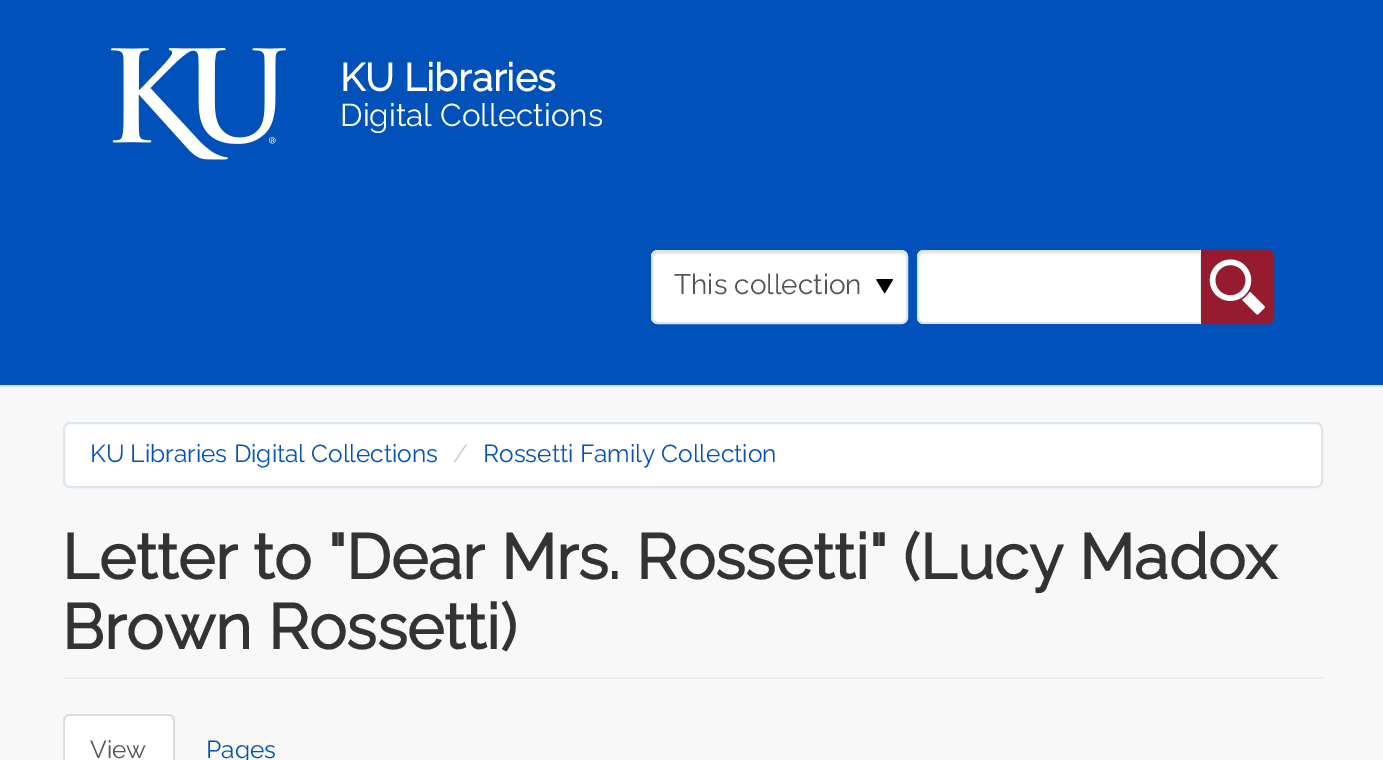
%!PS-Adobe-3.0
%%BoundingBox: 0 0 1383 760
%%LanguageLevel: 3
%%Pages: 1
%%EndComments
%%BeginProlog
/rrect { 5 dict begin { /r /h /w /y /x } { exch def } forall
  x r add y moveto x w add y 2 copy h add r arct x w add y h add x 1 index r arct
  x y h add x y r arct x y 2 copy exch w add exch r arct closepath end } def
/drawimage { 5 dict begin { /h /w /y /x /name } { exch def } forall
  gsave x y translate w h scale
  w h 8 [w 0 0 h 0 0] name (r) file false 3 colorimage grestore end } def
%%EndProlog
%%BeginSetup
<< /PageSize [1383 760] >> setpagedevice
%%EndSetup
%%Page: 1 1
0 760 translate 1 -1 scale
4 setmiterlimit
0.973 setgray
0 0 1383 760 rectfill
0 0.318 0.729 setrgbcolor
0 0 1383 385 rectfill
0.843 0.89 0.965 setrgbcolor
0 385 1383 2 rectfill
(images/1.raw) 111 48 175 112 drawimage
1 setgray
651 250 257 74 7 rrect fill
(images/2.raw) 876 279 17 15 drawimage
0.925 setgray
newpath 658 254 moveto 901 254 lineto 904 254 906 256 906 259 curveto 906 318 lineto 906 321 lineto 906 320 907 318 907 317 curveto 907 257 lineto 907 254 905 252 902 252 curveto 658 252 lineto 655 252 653 254 653 257 curveto 653 259 lineto 653 256 655 254 658 254 curveto closepath fill
0.867 0.898 0.929 setrgbcolor
2 setlinewidth
652 251 255 72 6 rrect stroke
1 setgray
newpath 924 250 moveto 1201 250 lineto 1201 324 lineto 924 324 lineto 920 324 917 321 917 317 curveto 917 257 lineto 917 253 920 250 924 250 curveto closepath fill
0.925 setgray
newpath 924 254 moveto 1200 254 lineto 1200 322 lineto 1201 322 lineto 1201 252 lineto 923 252 lineto 919 253 919 256 919 259 curveto 919 256 921 254 924 254 curveto closepath fill
0.867 0.898 0.929 setrgbcolor
newpath 924 250 moveto 1200 250 lineto 1200 324 lineto 924 324 lineto 920 324 917 321 917 317 curveto 917 257 lineto 917 253 920 250 924 250 curveto closepath 924 252 moveto 1200 252 lineto 1200 322 lineto 924 322 lineto 921 322 919 320 919 317 curveto 919 257 lineto 919 254 921 252 924 252 curveto closepath eofill
0.592 0.106 0.184 setrgbcolor
newpath 1201 250 moveto 1267 250 lineto 1271 250 1274 253 1274 257 curveto 1274 317 lineto 1274 321 1271 324 1267 324 curveto 1201 324 lineto closepath fill
(images/3.raw) 1209 259 56 56 drawimage
newpath 1202 251 moveto 1267 251 lineto 1270.5 251 1273 253.5 1273 257 curveto 1273 317 lineto 1273 320.5 1270.5 323 1267 323 curveto 1202 323 lineto closepath stroke
1 setgray
64 423 1258 64 6 rrect gsave fill grestore
0.867 0.898 0.929 setrgbcolor
stroke
0.933 setgray
63 677 1260 2 rectfill
1 setgray
newpath 70 714 moveto 168 714 lineto 172 714 175 717 175 721 curveto 175 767 lineto 63 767 lineto 63 721 lineto 63 717 66 714 70 714 curveto closepath fill
0.867 setgray
newpath 70 714 moveto 68 714 66 715 65 716 curveto 66 717 lineto 69 716 lineto 169 716 lineto 172 717 lineto 173 716 lineto 172 715 170 714 168 714 curveto closepath fill
newpath 175 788 moveto 175 721 lineto 175 719 174 717 173 716 curveto 172 717 lineto 172 718 173 720 173 721 curveto 173 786 lineto closepath fill
newpath 63 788 moveto 65 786 lineto 65 721 lineto 65 720 66 718 66 717 curveto 65 716 lineto 64 717 63 719 63 721 curveto closepath fill
/Raleway-Bold [38.5 0 0 -38.5 0 0] selectfont
1 setgray
340 91 moveto (KU Libraries) show
/Raleway-Thin [31.5 0 0 -31.5 0 0] selectfont
340 126 moveto (Digital Collections) show
/Raleway-Thin [28 0 0 -28 0 0] selectfont
0.333 setgray
674 294 moveto (This collection) show
/Raleway-Thin [24.5 0 0 -24.5 0 0] selectfont
0 0.318 0.729 setrgbcolor
90 462 moveto (KU Libraries Digital Collections) show
0.8 setgray
453 462 moveto (/) show
0 0.318 0.729 setrgbcolor
483 462 moveto (Rossetti Family Collection) show
/Raleway-Bold [63 0 0 -63 0 0] selectfont
0.2 setgray
62 579 moveto (Letter to "Dear Mrs. Rossetti" \(Lucy Madox) show
62 649 moveto (Brown Rossetti\)) show
/Raleway-Thin [24.5 0 0 -24.5 0 0] selectfont
0.333 setgray
90 758 moveto (View) show
0 0.318 0.729 setrgbcolor
206 758 moveto (Pages) show
showpage
%%EOF
